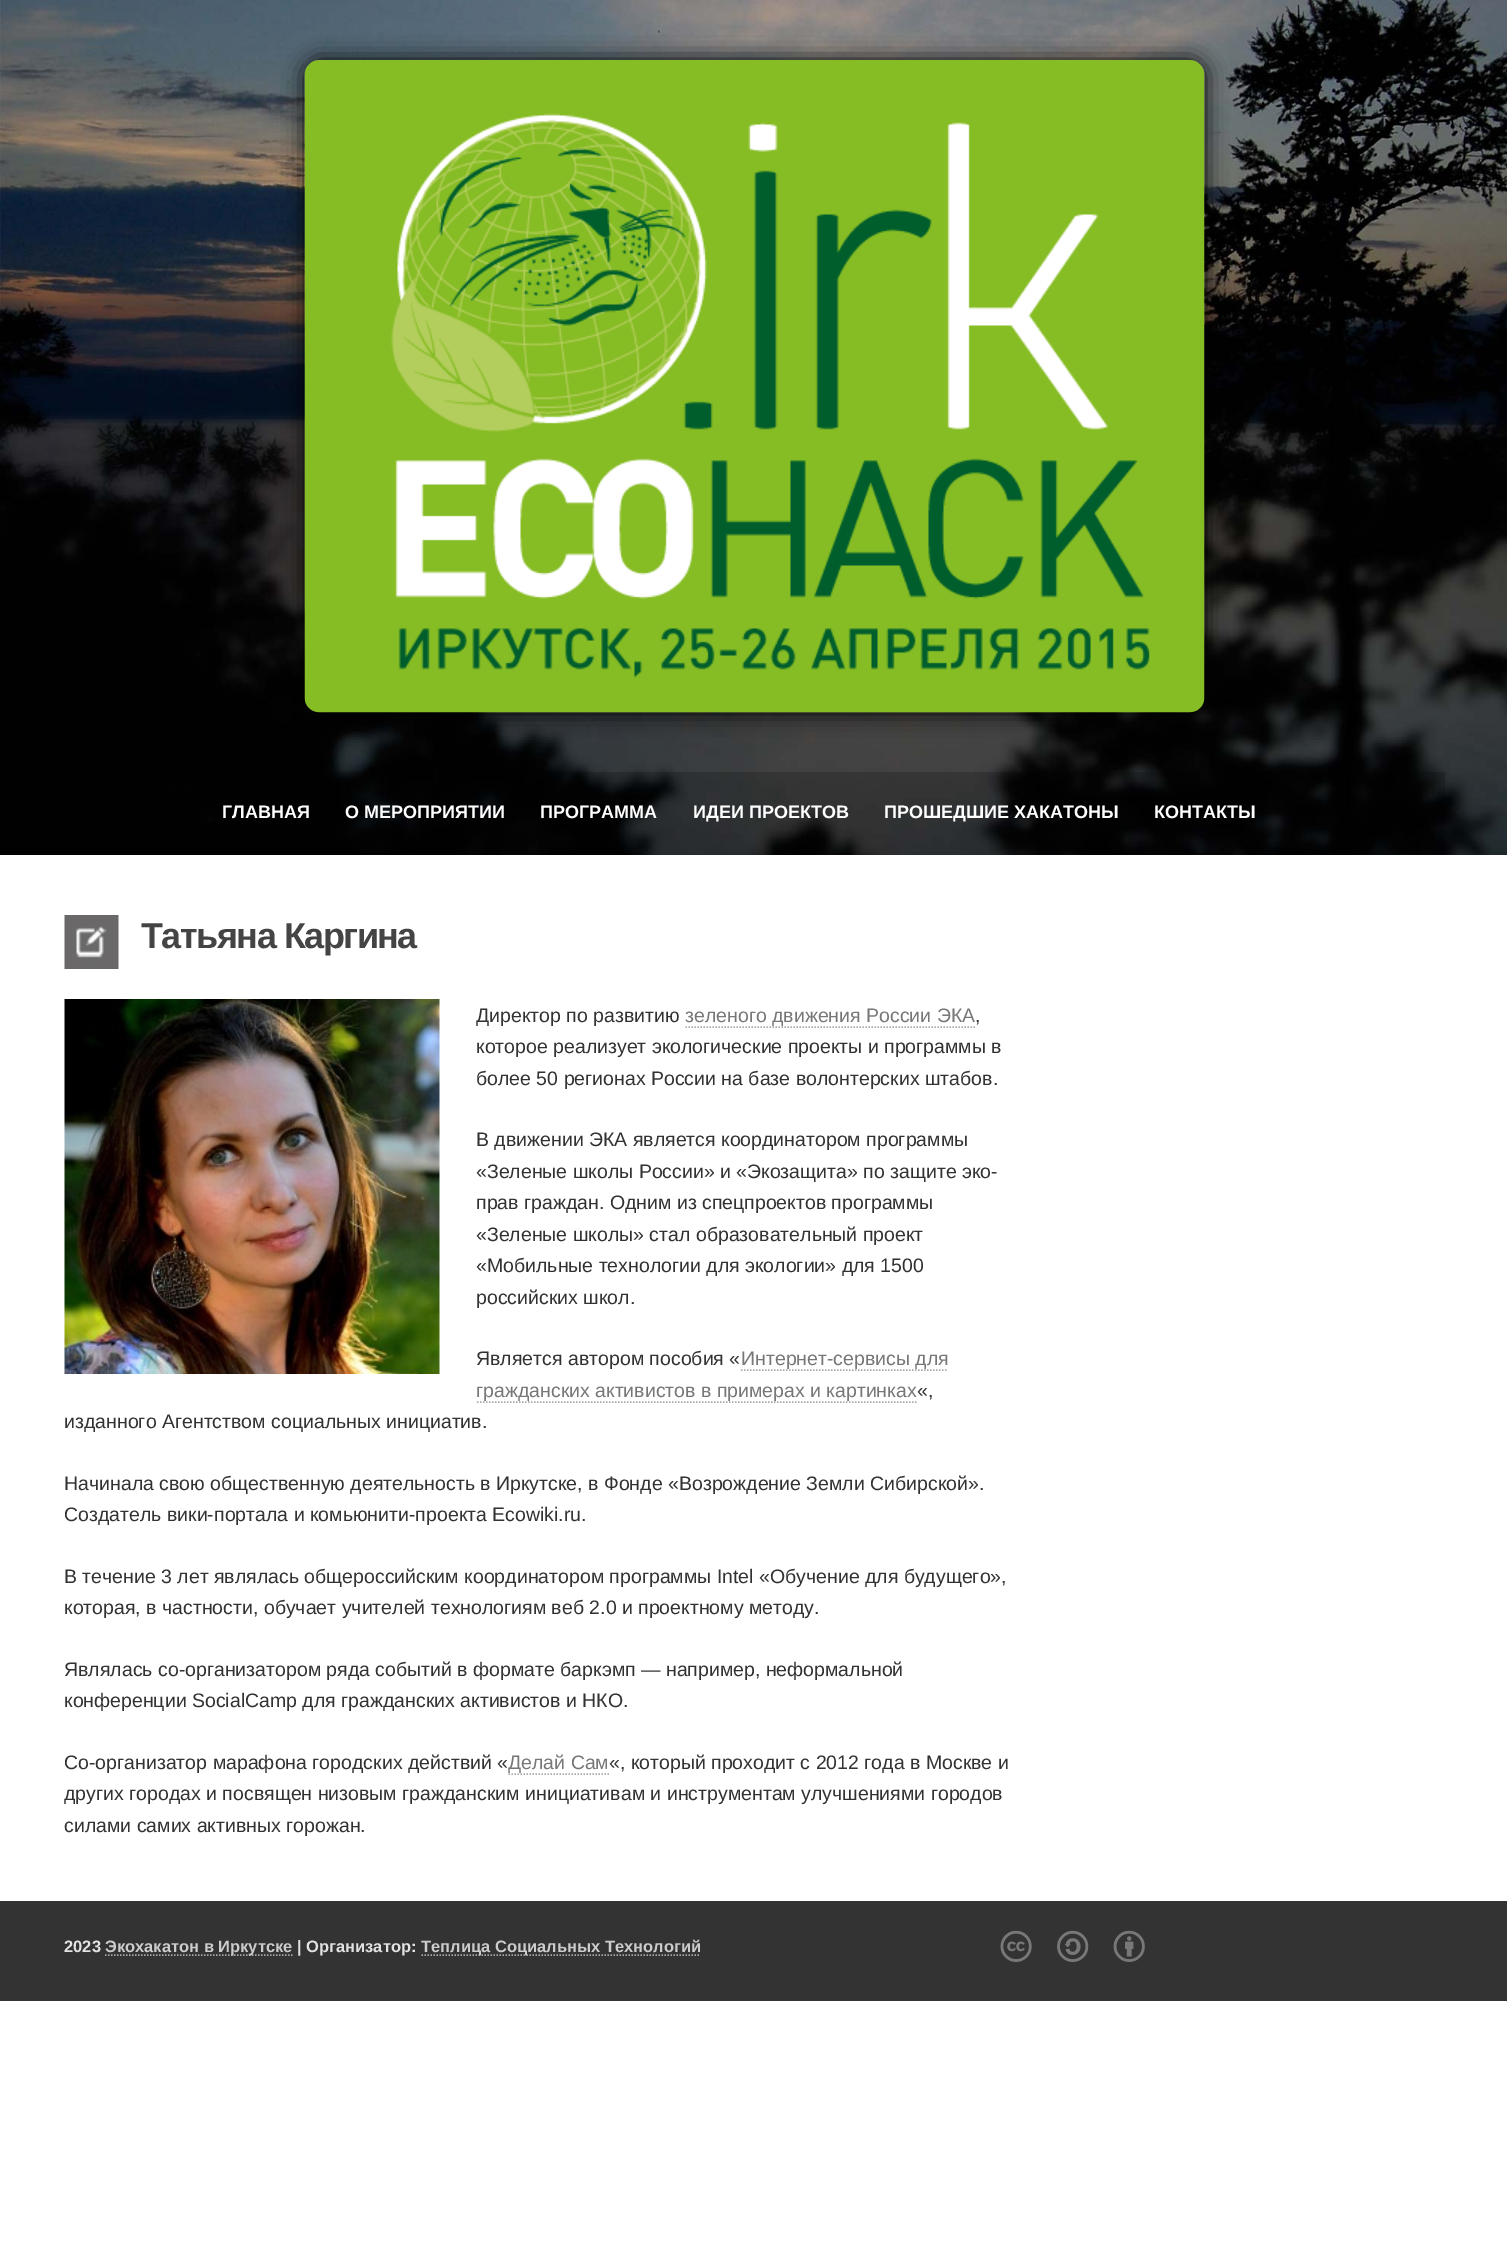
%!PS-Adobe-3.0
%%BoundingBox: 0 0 1507 2256
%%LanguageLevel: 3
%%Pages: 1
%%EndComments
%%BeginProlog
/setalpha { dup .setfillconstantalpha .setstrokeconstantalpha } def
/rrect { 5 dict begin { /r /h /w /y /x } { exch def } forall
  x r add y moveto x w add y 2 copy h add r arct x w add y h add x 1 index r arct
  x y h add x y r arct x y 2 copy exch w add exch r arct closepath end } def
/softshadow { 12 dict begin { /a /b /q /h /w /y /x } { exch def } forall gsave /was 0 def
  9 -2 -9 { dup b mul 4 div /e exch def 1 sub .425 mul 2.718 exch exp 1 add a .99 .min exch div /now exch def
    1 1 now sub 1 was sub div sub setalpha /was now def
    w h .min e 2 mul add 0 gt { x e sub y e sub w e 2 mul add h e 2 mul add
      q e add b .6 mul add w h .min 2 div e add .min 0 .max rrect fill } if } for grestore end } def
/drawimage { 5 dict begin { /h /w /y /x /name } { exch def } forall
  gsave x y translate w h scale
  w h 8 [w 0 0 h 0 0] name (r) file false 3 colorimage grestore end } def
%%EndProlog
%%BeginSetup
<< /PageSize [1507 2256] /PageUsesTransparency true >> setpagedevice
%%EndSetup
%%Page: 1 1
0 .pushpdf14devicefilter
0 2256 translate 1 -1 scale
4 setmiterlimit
1 setgray
0 0 1507 2256 rectfill
(images/1.raw) 0 0 1507 855 drawimage
0 setgray
305 60 900 653 15 11 1 softshadow
(images/2.raw) 304 60 901 653 drawimage
0.19 setalpha
339 772 1106 83 rectfill
1 setalpha
(images/3.raw) 64 915 55 54 drawimage
(images/4.raw) 64 999 376 375 drawimage
0.663 0.659 0.659 setrgbcolor
1.5 setlinewidth
[1.5 1.5] 0 setdash
newpath 685.5 1027 moveto 975 1027 lineto stroke
newpath 741 1370 moveto 948 1370 lineto stroke
newpath 477 1402 moveto 916.5 1402 lineto stroke
newpath 508.5 1774 moveto 609 1774 lineto stroke
0.2 setgray
0 1901 1507 100 rectfill
0.663 0.659 0.659 setrgbcolor
newpath 105 1955 moveto 292.5 1955 lineto stroke
newpath 421.5 1955 moveto 700.5 1955 lineto stroke
(images/5.raw) 1000 1930 145 32 drawimage
/LiberationSans-Bold [18 0 0 -18 0 0] selectfont
1 setgray
222 818 moveto (ГЛАВНАЯ) show
345 818 moveto (О МЕРОПРИЯТИИ) show
540 818 moveto (ПРОГРАММА) show
693 818 moveto (ИДЕИ ПРОЕКТОВ) show
884 818 moveto (ПРОШЕДШИЕ ХАКАТОНЫ) show
1154 818 moveto (КОНТАКТЫ) show
/LiberationSans-Bold [36 0 0 -36 0 0] selectfont
0.267 setgray
141 948 moveto -1.5 0 (Татьяна Каргина) ashow
/LiberationSans-Regular [19.5 0 0 -19.5 0 0] selectfont
0.196 setgray
476 1022 moveto (Директор по развитию) show
0.467 setgray
685 1022 moveto (зеленого движения России ЭКА) show
0.196 setgray
975 1022 moveto (,) show
476 1053 moveto (которое реализует экологические проекты и программы в) show
476 1085 moveto (более 50 регионах России на базе волонтерских штабов.) show
476 1146 moveto (В движении ЭКА является координатором программы) show
476 1178 moveto («Зеленые школы России» и «Экозащита» по защите эко-) show
476 1209 moveto (прав граждан. Одним из спецпроектов программы) show
476 1241 moveto («Зеленые школы» стал образовательный проект) show
476 1272 moveto («Мобильные технологии для экологии» для 1500) show
476 1304 moveto (российских школ.) show
476 1365 moveto (Является автором пособия «) show
0.467 setgray
741 1365 moveto (Интернет-сервисы для) show
476 1397 moveto (гражданских активистов в примерах и картинках) show
0.196 setgray
917 1397 moveto («,) show
64 1428 moveto (изданного Агентством социальных инициатив.) show
64 1490 moveto (Начинала свою общественную деятельность в Иркутске, в Фонде «Возрождение Земли Сибирской».) show
64 1521 moveto (Создатель вики-портала и комьюнити-проекта Ecowiki.ru.) show
64 1583 moveto (В течение 3 лет являлась общероссийским координатором программы Intel «Обучение для будущего»,) show
64 1614 moveto (которая, в частности, обучает учителей технологиям веб 2.0 и проектному методу.) show
64 1676 moveto (Являлась со-организатором ряда событий в формате баркэмп — например, неформальной) show
64 1707 moveto (конференции SocialCamp для гражданских активистов и НКО.) show
64 1769 moveto (Со-организатор марафона городских действий «) show
0.467 setgray
508 1769 moveto (Делай Сам) show
0.196 setgray
609 1769 moveto («, который проходит с 2012 года в Москве и) show
64 1800 moveto (других городах и посвящен низовым гражданским инициативам и инструментам улучшениями городов) show
64 1832 moveto (силами самих активных горожан.) show
/LiberationSans-Bold [16.5 0 0 -16.5 0 0] selectfont
0.89 setgray
64 1952 moveto (2023) show
0.8 setgray
105 1952 moveto (Экохакатон в Иркутске) show
0.89 setgray
297 1952 moveto (| Организатор:) show
0.8 setgray
421 1952 moveto (Теплица Социальных Технологий) show
.poppdf14devicefilter showpage
%%EOF
